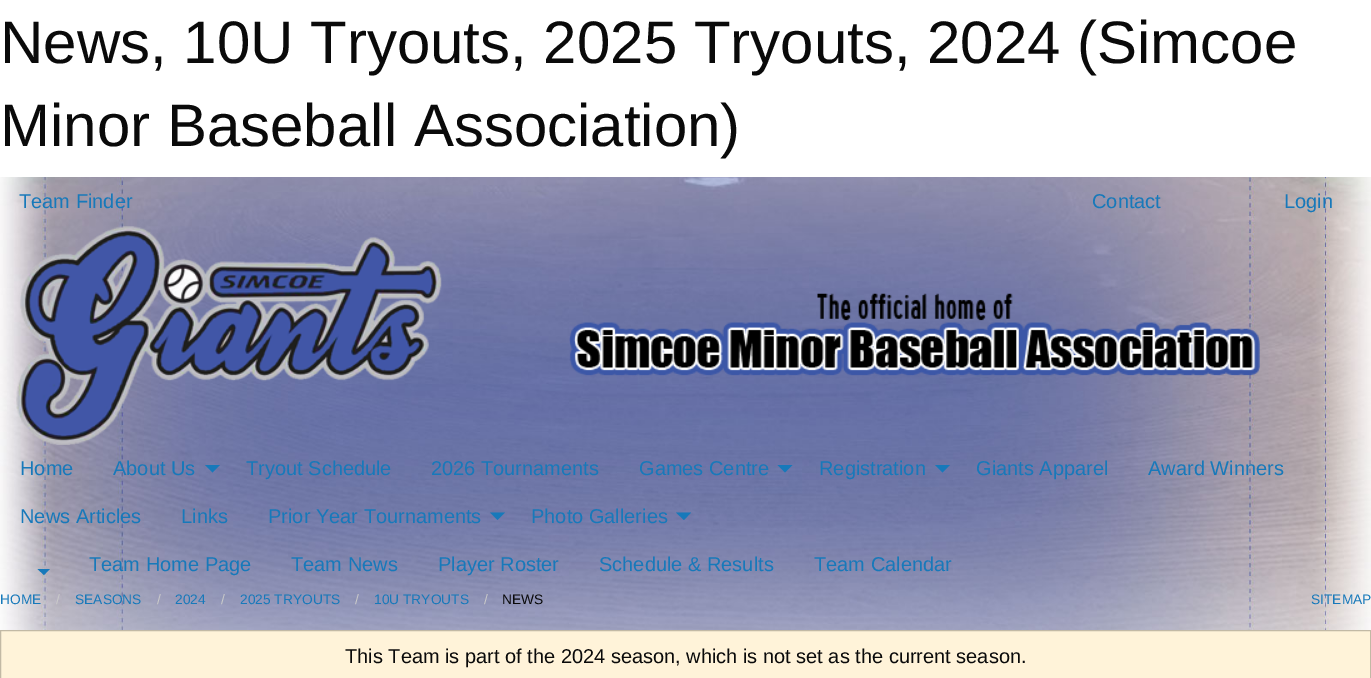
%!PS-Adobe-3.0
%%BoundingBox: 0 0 1371 678
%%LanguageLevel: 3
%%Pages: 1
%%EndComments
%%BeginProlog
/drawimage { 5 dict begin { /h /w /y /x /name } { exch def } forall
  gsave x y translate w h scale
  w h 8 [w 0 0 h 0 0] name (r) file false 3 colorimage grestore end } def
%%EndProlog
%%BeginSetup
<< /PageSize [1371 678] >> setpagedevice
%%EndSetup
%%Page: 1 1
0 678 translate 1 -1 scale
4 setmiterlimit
1 setgray
0 0 1371 678 rectfill
(images/1.raw) 0 177 1371 453 drawimage
(images/2.raw) 16 226 426 219 drawimage
(images/3.raw) 569 293 691 83 drawimage
0.09 0.475 0.729 setrgbcolor
newpath 205 465 moveto 220 465 lineto 212.5 472.5 lineto closepath fill
newpath 777.5 465 moveto 792.5 465 lineto 785 472.5 lineto closepath fill
newpath 935 465 moveto 950 465 lineto 942.5 472.5 lineto closepath fill
newpath 490 512.5 moveto 505 512.5 lineto 497.5 520 lineto closepath fill
newpath 676 512.5 moveto 691 512.5 lineto 684 520 lineto closepath fill
newpath 37.5 569 moveto 50 569 lineto 44 575 lineto closepath fill
1 0.953 0.851 setrgbcolor
newpath 0.5 630.5 moveto 1370.5 630.5 lineto 1370.5 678.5 lineto 0.5 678.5 lineto closepath gsave fill grestore
0.761 0.725 0.647 setrgbcolor
stroke
/LiberationSans-Regular [60 0 0 -60 0 0] selectfont
0.039 setgray
0 63 moveto (News, 10U Tryouts, 2025 Tryouts, 2024 \(Simcoe) show
0 146 moveto (Minor Baseball Association\)) show
/LiberationSans-Regular [20 0 0 -20 0 0] selectfont
0.09 0.475 0.729 setrgbcolor
19 208 moveto (Team Finder) show
1092 208 moveto (Contact) show
1284 208 moveto (Login) show
20 475 moveto (Home) show
113 475 moveto (About Us) show
246 475 moveto (Tryout Schedule) show
431 475 moveto (2026 Tournaments) show
639 475 moveto (Games Centre) show
819 475 moveto (Registration) show
976 475 moveto (Giants Apparel) show
1148 475 moveto (Award Winners) show
20 523 moveto (News Articles) show
181 523 moveto (Links) show
268 523 moveto (Prior Year Tournaments) show
531 523 moveto (Photo Galleries) show
89 571 moveto (Team Home Page) show
291 571 moveto (Team News) show
438 571 moveto (Player Roster) show
599 571 moveto (Schedule & Results) show
814 571 moveto (Team Calendar) show
/LiberationSans-Regular [13.75 0 0 -13.75 0 0] selectfont
0 604 moveto (HOME) show
0.792 setgray
56 604 moveto (/) show
0.09 0.475 0.729 setrgbcolor
75 604 moveto (SEASONS) show
0.792 setgray
157 604 moveto (/) show
0.09 0.475 0.729 setrgbcolor
175 604 moveto (2024) show
0.792 setgray
221 604 moveto (/) show
0.09 0.475 0.729 setrgbcolor
240 604 moveto (2025 TRYOUTS) show
0.792 setgray
355 604 moveto (/) show
0.09 0.475 0.729 setrgbcolor
374 604 moveto (10U TRYOUTS) show
0.792 setgray
484 604 moveto (/) show
0.039 setgray
502 604 moveto (NEWS) show
0.09 0.475 0.729 setrgbcolor
1311 604 moveto (SITEMAP) show
/LiberationSans-Regular [20 0 0 -20 0 0] selectfont
0.039 setgray
345 663 moveto (This Team is part of the 2024 season, which is not set as the current season.) show
showpage
%%EOF
